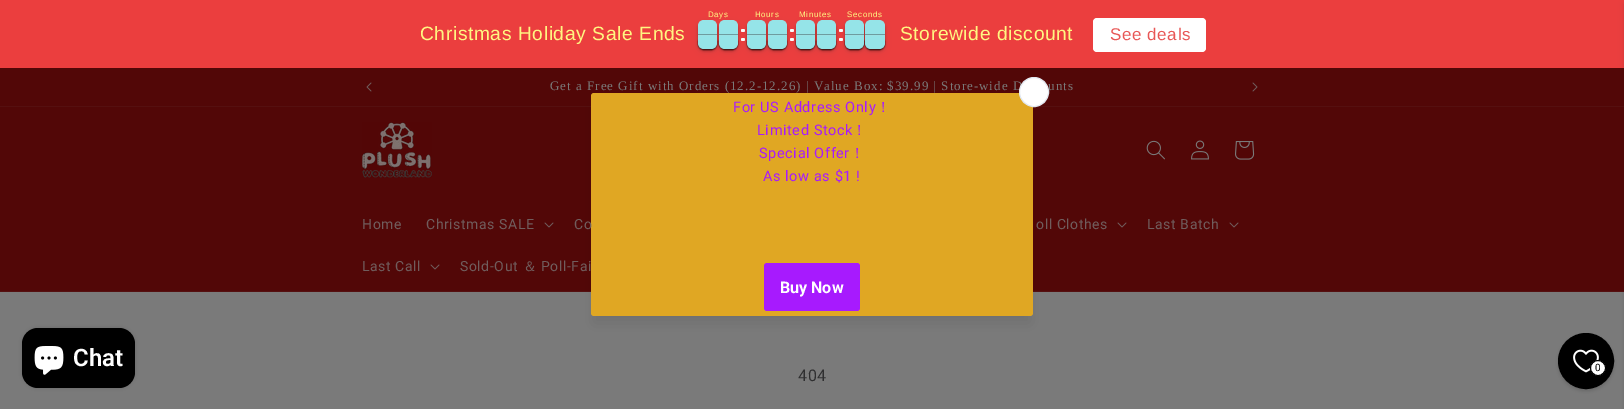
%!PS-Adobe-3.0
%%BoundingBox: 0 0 1624 409
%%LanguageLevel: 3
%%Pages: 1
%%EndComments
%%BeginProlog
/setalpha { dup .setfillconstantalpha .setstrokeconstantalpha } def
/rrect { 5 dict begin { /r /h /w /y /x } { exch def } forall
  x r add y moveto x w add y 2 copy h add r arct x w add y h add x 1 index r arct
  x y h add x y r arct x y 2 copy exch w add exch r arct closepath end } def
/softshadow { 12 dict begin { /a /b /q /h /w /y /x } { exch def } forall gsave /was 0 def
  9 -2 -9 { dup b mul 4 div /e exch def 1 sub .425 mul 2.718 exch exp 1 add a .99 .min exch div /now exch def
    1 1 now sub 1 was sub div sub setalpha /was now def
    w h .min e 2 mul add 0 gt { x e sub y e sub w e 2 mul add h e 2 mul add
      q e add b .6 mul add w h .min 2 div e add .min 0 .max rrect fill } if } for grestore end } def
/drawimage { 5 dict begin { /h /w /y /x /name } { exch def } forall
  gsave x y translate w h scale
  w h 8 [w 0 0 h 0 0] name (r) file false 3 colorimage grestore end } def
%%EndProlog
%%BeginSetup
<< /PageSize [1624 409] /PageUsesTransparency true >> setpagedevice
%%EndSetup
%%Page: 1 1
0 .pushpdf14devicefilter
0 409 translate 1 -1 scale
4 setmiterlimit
0.478 setgray
0 0 1624 409 rectfill
0.922 0.243 0.243 setrgbcolor
0 0 1624 68 rectfill
0 setgray
698 23 19 29 6 4 0.05 softshadow
698 22 19 29 6 1.5 0.24 softshadow
698 36 19 14 6 0.5 0.4 softshadow
719 23 19 29 6 4 0.05 softshadow
719 22 19 29 6 1.5 0.24 softshadow
719 36 19 14 6 0.5 0.4 softshadow
0.584 0.894 0.91 setrgbcolor
newpath 704 20 moveto 711 20 lineto 714.5 20 717 22.5 717 26 curveto 717 35 lineto 698 35 lineto 698 26 lineto 698 22.5 700.5 20 704 20 curveto closepath fill
0.4 setalpha
0.2 setgray
698 34 19 1 rectfill
1 setalpha
0 setgray
698 36 19 14 6 0.5 0.4 softshadow
0.584 0.894 0.91 setrgbcolor
newpath 698 35 moveto 717 35 lineto 717 43 lineto 717 46.5 714.5 49 711 49 curveto 704 49 lineto 700.5 49 698 46.5 698 43 curveto closepath fill
0.1 setalpha
0.8 setgray
698 35 19 1 rectfill
1 setalpha
1 setgray
741 29 4 3 1.5 rrect fill
741 38 4 3 1.5 rrect fill
0 setgray
747 23 19 29 6 4 0.05 softshadow
0.584 0.894 0.91 setrgbcolor
newpath 725 20 moveto 732 20 lineto 735.5 20 738 22.5 738 26 curveto 738 35 lineto 719 35 lineto 719 26 lineto 719 22.5 721.5 20 725 20 curveto closepath fill
0.4 setalpha
0.2 setgray
719 34 19 1 rectfill
1 setalpha
0 setgray
719 36 19 14 6 0.5 0.4 softshadow
0.584 0.894 0.91 setrgbcolor
newpath 719 35 moveto 738 35 lineto 738 43 lineto 738 46.5 735.5 49 732 49 curveto 725 49 lineto 721.5 49 719 46.5 719 43 curveto closepath fill
0.1 setalpha
0.8 setgray
719 35 19 1 rectfill
1 setalpha
0 setgray
747 22 19 29 6 1.5 0.24 softshadow
747 36 19 14 6 0.5 0.4 softshadow
768 23 19 29 6 4 0.05 softshadow
768 22 19 29 6 1.5 0.24 softshadow
768 36 19 14 6 0.5 0.4 softshadow
0.584 0.894 0.91 setrgbcolor
newpath 753 20 moveto 760 20 lineto 763.5 20 766 22.5 766 26 curveto 766 35 lineto 747 35 lineto 747 26 lineto 747 22.5 749.5 20 753 20 curveto closepath fill
0.4 setalpha
0.2 setgray
747 34 19 1 rectfill
1 setalpha
0 setgray
747 36 19 14 6 0.5 0.4 softshadow
0.584 0.894 0.91 setrgbcolor
newpath 747 35 moveto 766 35 lineto 766 43 lineto 766 46.5 763.5 49 760 49 curveto 753 49 lineto 749.5 49 747 46.5 747 43 curveto closepath fill
0.1 setalpha
0.8 setgray
747 35 19 1 rectfill
1 setalpha
1 setgray
790 29 4 3 1.5 rrect fill
790 38 4 3 1.5 rrect fill
0 setgray
796 23 19 29 6 4 0.05 softshadow
0.584 0.894 0.91 setrgbcolor
newpath 774 20 moveto 781 20 lineto 784.5 20 787 22.5 787 26 curveto 787 35 lineto 768 35 lineto 768 26 lineto 768 22.5 770.5 20 774 20 curveto closepath fill
0.4 setalpha
0.2 setgray
768 34 19 1 rectfill
1 setalpha
0 setgray
768 36 19 14 6 0.5 0.4 softshadow
0.584 0.894 0.91 setrgbcolor
newpath 768 35 moveto 787 35 lineto 787 43 lineto 787 46.5 784.5 49 781 49 curveto 774 49 lineto 770.5 49 768 46.5 768 43 curveto closepath fill
0.1 setalpha
0.8 setgray
768 35 19 1 rectfill
1 setalpha
0 setgray
796 22 19 29 6 1.5 0.24 softshadow
796 36 19 14 6 0.5 0.4 softshadow
817 23 19 29 6 4 0.05 softshadow
817 22 19 29 6 1.5 0.24 softshadow
817 36 19 14 6 0.5 0.4 softshadow
0.584 0.894 0.91 setrgbcolor
newpath 802 20 moveto 809 20 lineto 812.5 20 815 22.5 815 26 curveto 815 35 lineto 796 35 lineto 796 26 lineto 796 22.5 798.5 20 802 20 curveto closepath fill
0.4 setalpha
0.2 setgray
796 34 19 1 rectfill
1 setalpha
0 setgray
796 36 19 14 6 0.5 0.4 softshadow
0.584 0.894 0.91 setrgbcolor
newpath 796 35 moveto 815 35 lineto 815 43 lineto 815 46.5 812.5 49 809 49 curveto 802 49 lineto 798.5 49 796 46.5 796 43 curveto closepath fill
0.1 setalpha
0.8 setgray
796 35 19 1 rectfill
1 setalpha
1 setgray
839 29 4 3 1.5 rrect fill
839 38 4 3 1.5 rrect fill
0 setgray
845 23 19 29 6 4 0.05 softshadow
0.584 0.894 0.91 setrgbcolor
newpath 823 20 moveto 830 20 lineto 833.5 20 836 22.5 836 26 curveto 836 35 lineto 817 35 lineto 817 26 lineto 817 22.5 819.5 20 823 20 curveto closepath fill
0.4 setalpha
0.2 setgray
817 34 19 1 rectfill
1 setalpha
0 setgray
817 36 19 14 6 0.5 0.4 softshadow
0.584 0.894 0.91 setrgbcolor
newpath 817 35 moveto 836 35 lineto 836 43 lineto 836 46.5 833.5 49 830 49 curveto 823 49 lineto 819.5 49 817 46.5 817 43 curveto closepath fill
0.1 setalpha
0.8 setgray
817 35 19 1 rectfill
1 setalpha
0 setgray
845 22 19 29 6 1.5 0.24 softshadow
845 36 19 14 6 0.5 0.4 softshadow
865 23 20 29 6 4 0.05 softshadow
865 22 20 29 6 1.5 0.24 softshadow
865 36 20 14 6 0.5 0.4 softshadow
0.584 0.894 0.91 setrgbcolor
newpath 851 20 moveto 858 20 lineto 861.5 20 864 22.5 864 26 curveto 864 35 lineto 845 35 lineto 845 26 lineto 845 22.5 847.5 20 851 20 curveto closepath fill
0.4 setalpha
0.2 setgray
845 34 19 1 rectfill
1 setalpha
0 setgray
845 36 19 14 6 0.5 0.4 softshadow
0.584 0.894 0.91 setrgbcolor
newpath 845 35 moveto 864 35 lineto 864 43 lineto 864 46.5 861.5 49 858 49 curveto 851 49 lineto 847.5 49 845 46.5 845 43 curveto closepath fill
0.1 setalpha
0.8 setgray
845 35 19 1 rectfill
1 setalpha
0.584 0.894 0.91 setrgbcolor
newpath 871 20 moveto 879 20 lineto 882.5 20 885 22.5 885 26 curveto 885 35 lineto 865 35 lineto 865 26 lineto 865 22.5 867.5 20 871 20 curveto closepath fill
0.4 setalpha
0.2 setgray
865 34 20 1 rectfill
1 setalpha
0 setgray
865 36 20 14 6 0.5 0.4 softshadow
0.584 0.894 0.91 setrgbcolor
newpath 865 35 moveto 885 35 lineto 885 43 lineto 885 46.5 882.5 49 879 49 curveto 871 49 lineto 867.5 49 865 46.5 865 43 curveto closepath fill
0.1 setalpha
0.8 setgray
865 35 20 1 rectfill
1 setalpha
1 setgray
1093 18 113 34 4 rrect fill
0.322 0.027 0.027 setrgbcolor
0 68 1624 38 rectfill
0.333 0.063 0.063 setrgbcolor
0 106 1624 1 rectfill
0.322 0.027 0.027 setrgbcolor
0 107 1624 184 rectfill
0.333 0.063 0.063 setrgbcolor
0 291 1624 1 rectfill
0 setgray
1624 4 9 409 0 3 0.1 softshadow
(images/1.raw) 366 82 6 10 drawimage
(images/2.raw) 1252 82 6 10 drawimage
594 106 436 217 0 7.5 0.1 softshadow
0.878 0.655 0.137 setrgbcolor
591 93 442 223 3 rrect fill
0.655 0.102 0.996 setrgbcolor
764 263 96 48 3 rrect fill
(images/3.raw) 362 122 70 56 drawimage
(images/4.raw) 1146 140 19 20 drawimage
(images/5.raw) 1191 140 18 20 drawimage
(images/6.raw) 1235 141 20 19 drawimage
(images/7.raw) 544 222 10 6 drawimage
(images/7.raw) 1117 222 10 6 drawimage
(images/7.raw) 1229 222 10 6 drawimage
(images/7.raw) 430 264 10 6 drawimage
0 setgray
22 328 113 60 16 2.5 0.15 softshadow
22 328 113 60 16 rrect fill
(images/8.raw) 34 346 30 29 drawimage
1558 335 56 56 28 2 0.15 softshadow
newpath 1586 361 27 0 360 arc closepath gsave fill grestore
2 setlinewidth
stroke
(images/9.raw) 1573 349 26 24 drawimage
1 setgray
newpath 1598 368 7.5 0 360 arc closepath gsave fill grestore
0 setgray
1 setlinewidth
stroke
/LiberationSans-Regular [8 0 0 -8 0 0] selectfont
1 0.965 0.506 setrgbcolor
708 17 moveto 0.6 0 (Days) ashow
755 17 moveto 0.6 0 (Hours) ashow
799 17 moveto 0.6 0 (Minutes) ashow
847 17 moveto 0.6 0 (Seconds) ashow
/LiberationSans-Regular [19.25 0 0 -19.25 0 0] selectfont
420 40 moveto 0.6 0 (Christmas Holiday Sale Ends) ashow
900 40 moveto 0.6 0 (Storewide discount) ashow
/LiberationSans-Regular [17 0 0 -17 0 0] selectfont
0.91 0.341 0.337 setrgbcolor
1110 40 moveto 0.6 0 (See deals) ashow
/LiberationSerif-Regular [13 0 0 -13 0 0] selectfont
0.478 setgray
550 90 moveto 1 0 (Get a Free Gift with Orders \(12.2-12.26\) | Value Box: $39.99 | Store-wide D) ashow
1048 90 moveto 1 0 (unts) ashow
1 setgray
newpath 1034 92 14.5 0 360 arc closepath gsave fill grestore
0.886 0.91 0.941 setrgbcolor
stroke
/Roboto-Regular [14.5 0 0 -14.5 0 0] selectfont
0.655 0.102 0.996 setrgbcolor
733 112 moveto 0.6 0 (For US Address Only) ashow
/WenQuanYiZenHei-Medium [14.5 0 0 -14.5 0 0] selectfont
876 112 moveto 0.6 0 (！) ashow
/Roboto-Regular [14.5 0 0 -14.5 0 0] selectfont
757 135 moveto 0.6 0 (Limited Stock) ashow
/WenQuanYiZenHei-Medium [14.5 0 0 -14.5 0 0] selectfont
852 135 moveto 0.6 0 (！) ashow
/Roboto-Regular [14.5 0 0 -14.5 0 0] selectfont
759 158 moveto 0.6 0 (Special Offer) ashow
/WenQuanYiZenHei-Medium [14.5 0 0 -14.5 0 0] selectfont
850 158 moveto 0.6 0 (！) ashow
/Roboto-Regular [14.5 0 0 -14.5 0 0] selectfont
763 181 moveto 0.6 0 (As low as $1 !) ashow
/Roboto-Bold [16 0 0 -16 0 0] selectfont
1 setgray
780 293 moveto (Buy Now) show
/Roboto-Regular [14 0 0 -14 0 0] selectfont
0.439 0.365 0.365 setrgbcolor
362 229 moveto 0.6 0 (Home) ashow
426 229 moveto 0.6 0 (Christmas SALE) ashow
574 229 moveto 0.6 0 (Co) ashow
1036 229 moveto 0.6 0 (oll Clothes) ashow
1147 229 moveto 0.6 0 (Last Batch) ashow
362 271 moveto 0.6 0 (Last Call) ashow
460 271 moveto 0.6 0 (Sold-Out) ashow
/WenQuanYiZenHei-Medium [14 0 0 -14 0 0] selectfont
523 271 moveto 0.6 0 (＆) ashow
/Roboto-Regular [14 0 0 -14 0 0] selectfont
541 271 moveto 0.6 0 (Poll-Fai) ashow
/Roboto-SemiBold [24 0 0 -24 0 0] selectfont
1 setgray
73 366 moveto (Chat) show
/Roboto-Regular [10 0 0 -10 0 0] selectfont
0 setgray
1595 371 moveto 0.6 0 (0) ashow
/Roboto-Regular [16 0 0 -16 0 0] selectfont
0.184 0.184 0.188 setrgbcolor
798 381 moveto 0.6 0 (404) ashow
.poppdf14devicefilter showpage
%%EOF
